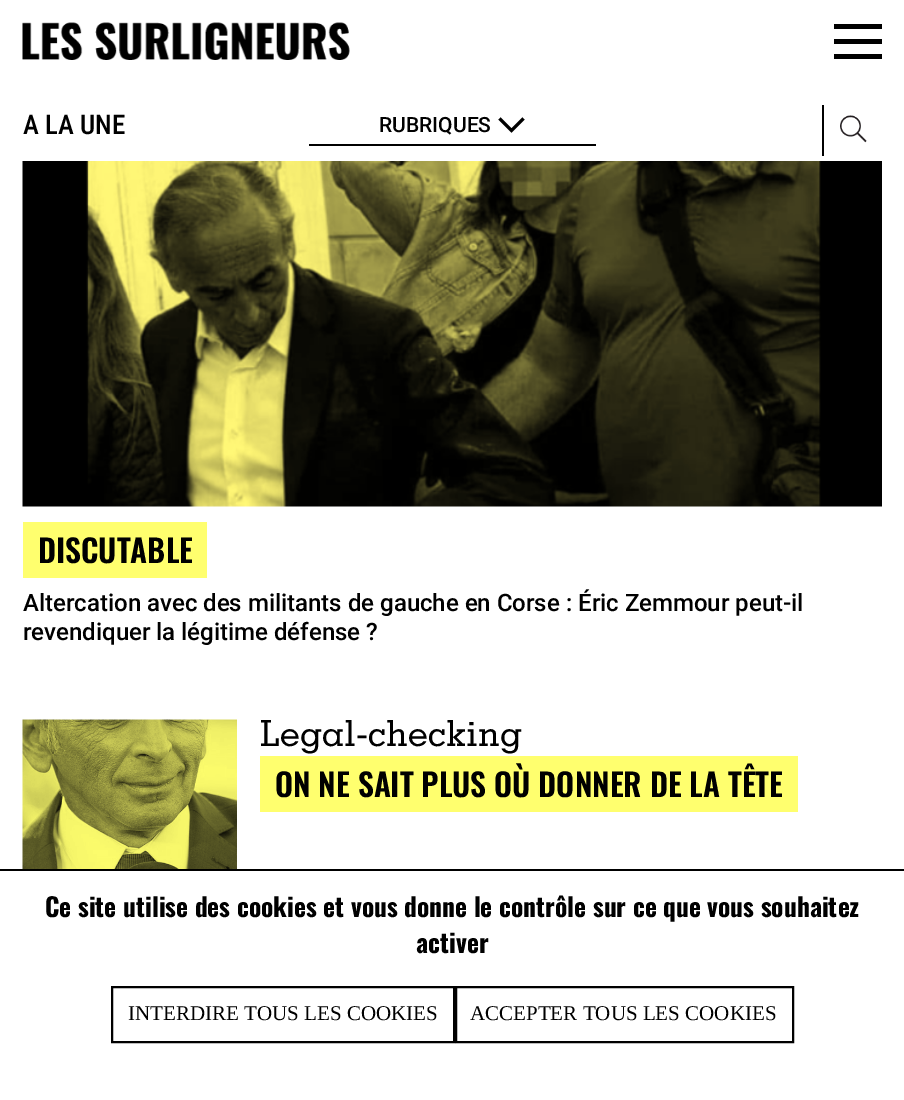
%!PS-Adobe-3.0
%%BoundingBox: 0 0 904 1100
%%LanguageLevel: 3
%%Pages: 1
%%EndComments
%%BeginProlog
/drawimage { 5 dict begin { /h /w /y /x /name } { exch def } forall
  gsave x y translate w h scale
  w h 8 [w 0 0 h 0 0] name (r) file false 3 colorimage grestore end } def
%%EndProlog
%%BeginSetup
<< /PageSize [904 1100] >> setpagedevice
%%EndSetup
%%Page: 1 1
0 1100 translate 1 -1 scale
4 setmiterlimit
1 setgray
0 0 904 1100 rectfill
(images/1.raw) 22 22 328 38 drawimage
0 setgray
834 24 48 5 rectfill
834 39 48 5 rectfill
834 54 48 5 rectfill
309 144 287 2 rectfill
3 setlinewidth
newpath 499.5 118.5 moveto 511.5 130.5 lineto 523.5 118.5 lineto stroke
822 105 2 51 rectfill
(images/2.raw) 840 115 27 28 drawimage
(images/3.raw) 22 161 860 346 drawimage
1 1 0.431 setrgbcolor
23 522 184 56 rectfill
(images/4.raw) 22 719 215 150 drawimage
260 756 538 56 rectfill
0 setgray
0 869 904 2 rectfill
2 setlinewidth
112 987 342 55 rectstroke
456 987 337 55 rectstroke
/RobotoCondensed-Medium [27 0 0 -27 0 0] selectfont
23 134 moveto (A LA UNE) show
/Roboto-Medium [21 0 0 -21 0 0] selectfont
379 132 moveto (RUBRIQUES) show
/Oswald-SemiBold [31.5 0 0 -31.5 0 0] selectfont
38 563 moveto (DISCUTABLE) show
/Roboto-Medium [24 0 0 -24 0 0] selectfont
23 611 moveto (Altercation avec des militants de gauche en Corse : Éric Zemmour peut-il) show
23 640 moveto (revendiquer la légitime défense ?) show
/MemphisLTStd-Medium [36 0 0 -36 0 0] selectfont
260 746 moveto (Legal-checking) show
/Oswald-SemiBold [31.5 0 0 -31.5 0 0] selectfont
275 797 moveto (ON NE SAIT PLUS OÙ DONNER DE LA TÊTE) show
/Oswald-Bold [25.5 0 0 -25.5 0 0] selectfont
45 917 moveto (Ce site utilise des cookies et vous donne le contrôle sur ce que vous souhaitez) show
416 953 moveto (activer) show
/LiberationSerif-Regular [21 0 0 -21 0 0] selectfont
128 1020 moveto (INTERDIRE TOUS LES COOKIES) show
470 1020 moveto (ACCEPTER TOUS LES COOKIES) show
showpage
%%EOF
